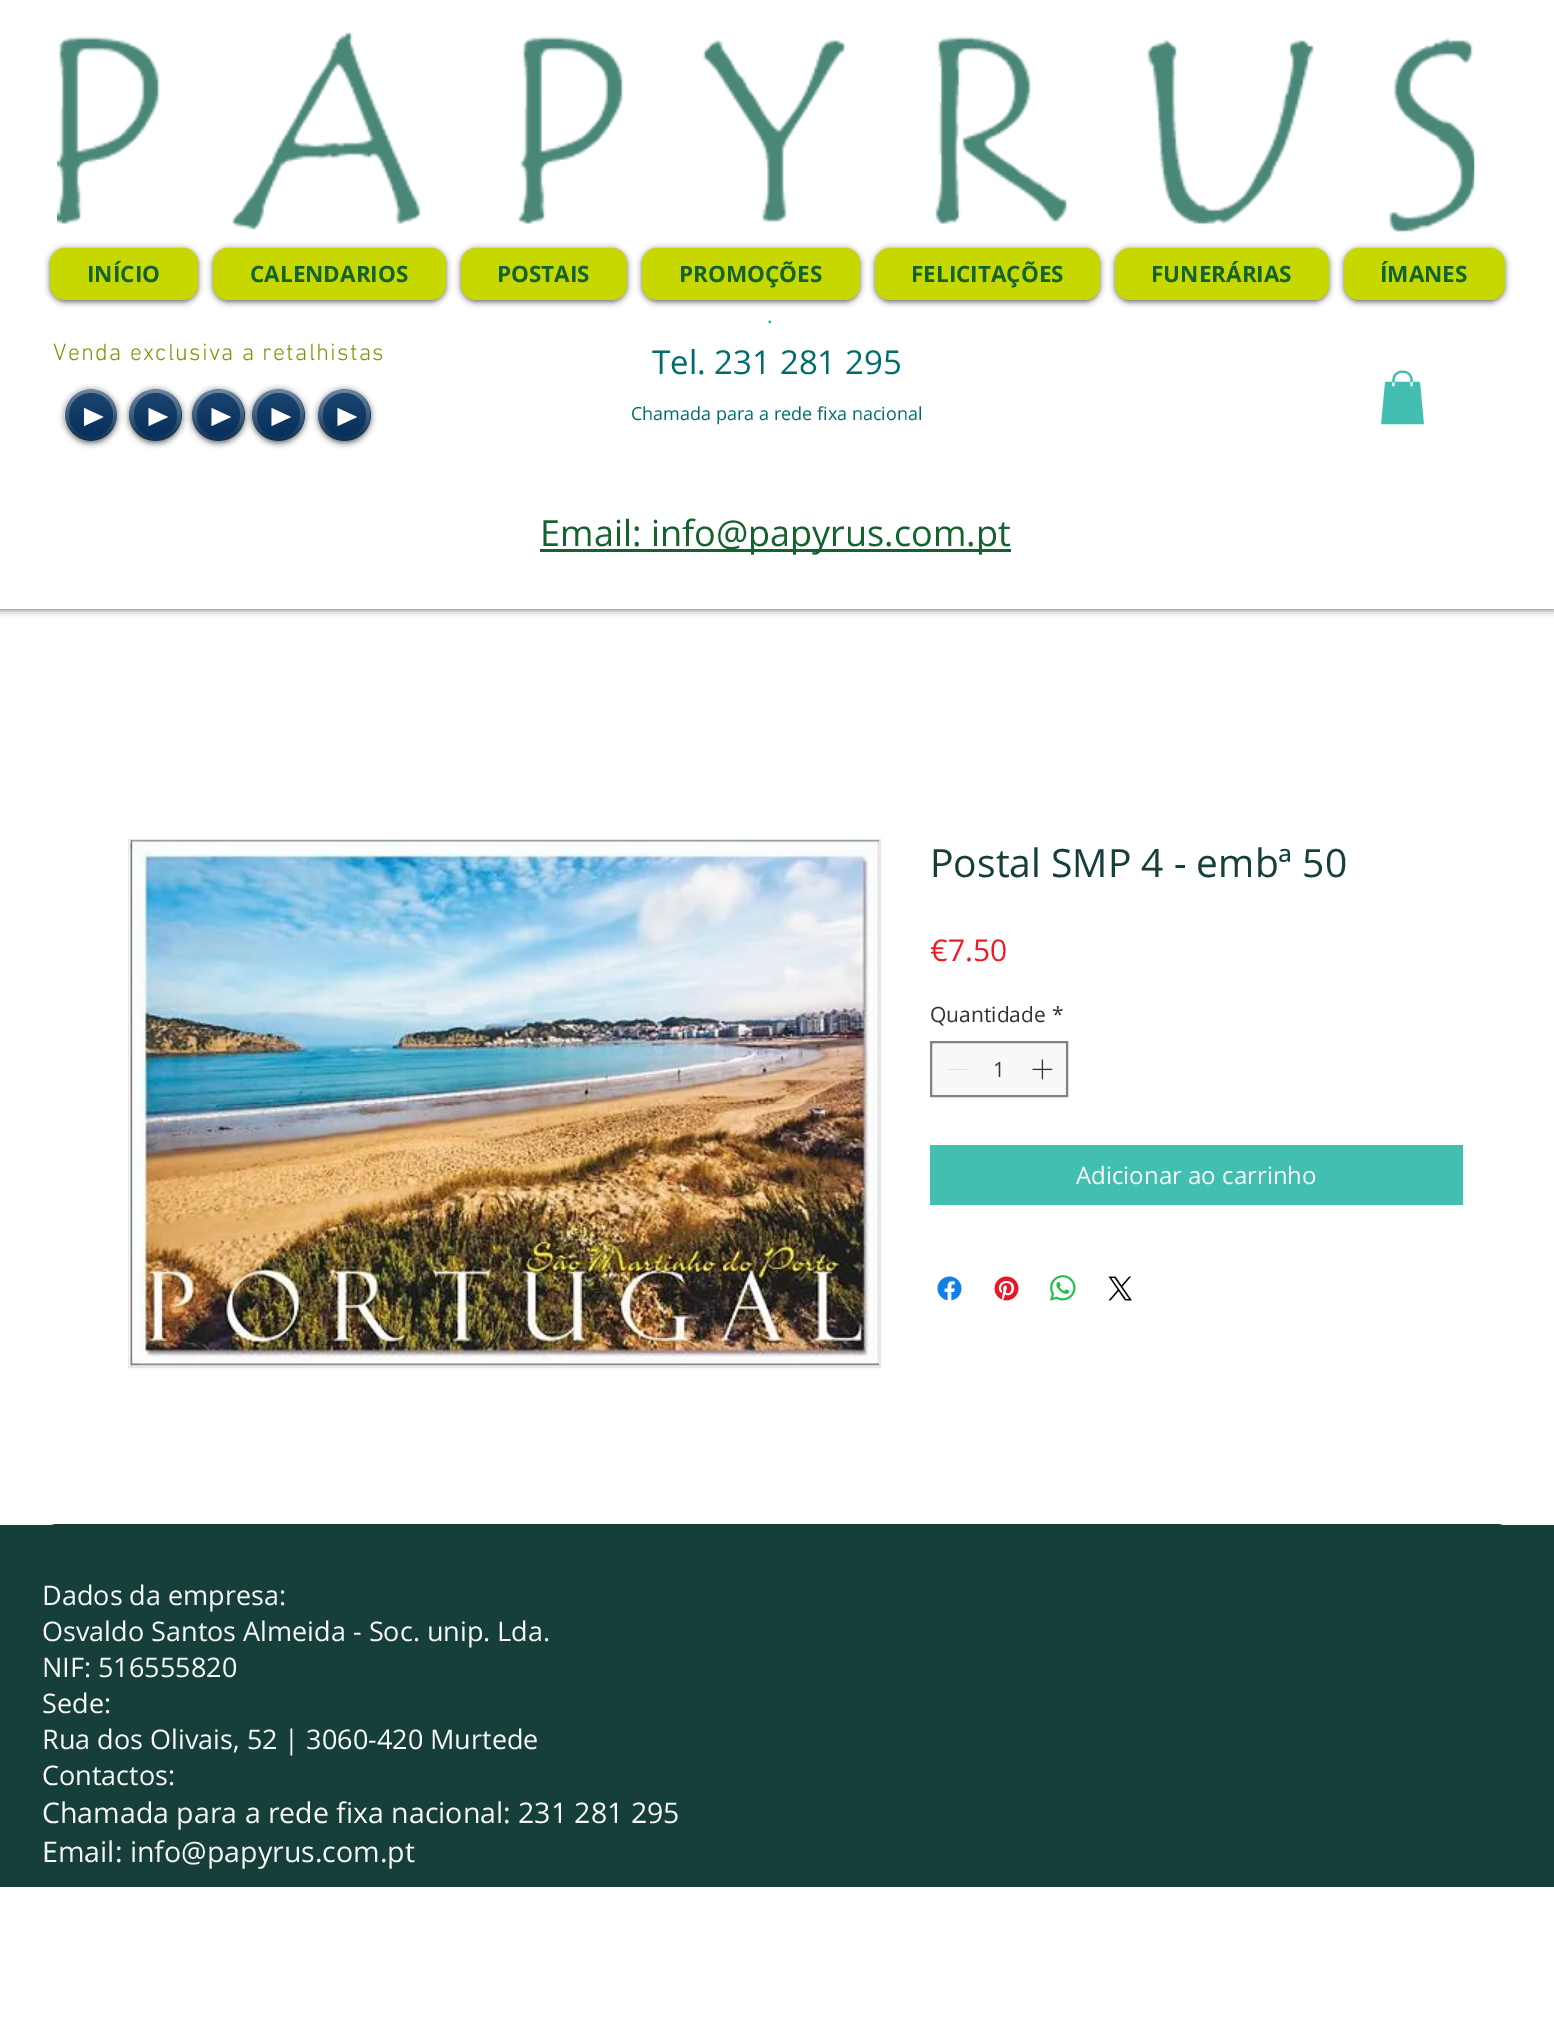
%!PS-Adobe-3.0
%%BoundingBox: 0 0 1554 2032
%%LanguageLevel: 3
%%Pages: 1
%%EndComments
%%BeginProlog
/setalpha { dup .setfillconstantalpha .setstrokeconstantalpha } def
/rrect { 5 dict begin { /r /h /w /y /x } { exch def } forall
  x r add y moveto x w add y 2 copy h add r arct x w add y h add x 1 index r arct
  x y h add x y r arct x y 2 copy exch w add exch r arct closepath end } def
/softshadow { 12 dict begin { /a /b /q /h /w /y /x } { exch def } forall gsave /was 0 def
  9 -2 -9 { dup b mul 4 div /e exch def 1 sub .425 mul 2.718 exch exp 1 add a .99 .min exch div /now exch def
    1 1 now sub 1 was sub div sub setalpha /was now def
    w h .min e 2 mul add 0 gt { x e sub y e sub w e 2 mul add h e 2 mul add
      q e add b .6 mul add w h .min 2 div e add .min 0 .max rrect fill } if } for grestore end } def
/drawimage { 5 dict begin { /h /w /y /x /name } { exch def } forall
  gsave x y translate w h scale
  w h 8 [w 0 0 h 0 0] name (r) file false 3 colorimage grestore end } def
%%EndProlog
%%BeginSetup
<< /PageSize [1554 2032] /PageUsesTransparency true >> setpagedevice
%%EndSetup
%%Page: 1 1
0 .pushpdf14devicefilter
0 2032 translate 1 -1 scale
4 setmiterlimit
1 setgray
0 0 1554 2032 rectfill
gsave
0 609 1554 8 rectclip
0 setgray
0 0 1554 609 0 4 0.7 softshadow
grestore
(images/1.raw) 57 31 1418 202 drawimage
0 setgray
50 249 148 53 15 3 0.6 softshadow
0.776 0.847 0 setrgbcolor
50 248 148 52 15 rrect fill
0 setgray
213 249 233 53 15 3 0.6 softshadow
0.776 0.847 0 setrgbcolor
213 248 233 52 15 rrect fill
0 setgray
461 249 166 53 15 3 0.6 softshadow
0.776 0.847 0 setrgbcolor
461 248 166 52 15 rrect fill
0 setgray
642 249 218 53 15 3 0.6 softshadow
0.776 0.847 0 setrgbcolor
642 248 218 52 15 rrect fill
0 setgray
875 249 225 53 15 3 0.6 softshadow
0.776 0.847 0 setrgbcolor
875 248 225 52 15 rrect fill
0 setgray
1115 249 214 53 15 3 0.6 softshadow
0.776 0.847 0 setrgbcolor
1115 248 214 52 15 rrect fill
0 setgray
1344 249 161 53 15 3 0.6 softshadow
0.776 0.847 0 setrgbcolor
1344 248 161 52 15 rrect fill
(images/2.raw) 1381 370 43 55 drawimage
0 setgray
65 390 52 53 26 3 0.6 softshadow
0 0.18 0.365 setrgbcolor
newpath 91 415 26 0 360 arc closepath fill
(images/3.raw) 65 389 52 52 drawimage
(images/4.raw) 64 391 53 50 drawimage
0.75 setalpha
newpath 91 415 22 0 360 arc closepath fill
1 setalpha
1 setgray
newpath 84 426 moveto 84 408 lineto 103.5 417 lineto closepath fill
0 setgray
129 390 53 53 26.5 3 0.6 softshadow
0 0.18 0.365 setrgbcolor
129 389 53 52 26 rrect fill
(images/5.raw) 129 389 53 52 drawimage
(images/6.raw) 129 392 52 49 drawimage
0.75 setalpha
134 393 43 44 21.5 rrect fill
1 setalpha
1 setgray
newpath 148.5 426 moveto 148.5 408 lineto 168 417 lineto closepath fill
0 setgray
192 390 53 53 26.5 3 0.6 softshadow
0 0.18 0.365 setrgbcolor
192 389 53 52 26 rrect fill
(images/5.raw) 192 389 53 52 drawimage
(images/6.raw) 192 392 52 49 drawimage
0.75 setalpha
197 393 43 44 21.5 rrect fill
1 setalpha
1 setgray
newpath 211.5 426 moveto 211.5 408 lineto 231 417 lineto closepath fill
0 setgray
252 390 53 53 26.5 3 0.6 softshadow
0 0.18 0.365 setrgbcolor
252 389 53 52 26 rrect fill
(images/7.raw) 252 389 53 52 drawimage
(images/8.raw) 252 392 52 49 drawimage
0.75 setalpha
257 393 43 44 21.5 rrect fill
1 setalpha
1 setgray
newpath 271.5 426 moveto 271.5 408 lineto 291 417 lineto closepath fill
0 setgray
318 390 53 53 26.5 3 0.6 softshadow
0 0.18 0.365 setrgbcolor
318 389 53 52 26 rrect fill
(images/5.raw) 318 389 53 52 drawimage
(images/6.raw) 318 392 52 49 drawimage
0.75 setalpha
323 393 43 44 21.5 rrect fill
1 setalpha
1 setgray
newpath 337.5 426 moveto 337.5 408 lineto 357 417 lineto closepath fill
0.078 0.388 0.184 setrgbcolor
540 549 471 3 rectfill
0.91 setgray
2 setlinewidth
129 840 751 527 rectstroke
(images/9.raw) 129 840 750 526 drawimage
0.973 setgray
newpath 931 1042 moveto 1067 1042 lineto 1067 1096 lineto 931 1096 lineto closepath gsave fill grestore
0.51 setgray
stroke
0.878 setgray
947 1069 20 1 rectfill
(images/10.raw) 1032 1059 21 21 drawimage
0.259 0.749 0.69 setrgbcolor
930 1145 533 60 rectfill
(images/11.raw) 937 1276 25 25 drawimage
(images/12.raw) 994 1276 25 25 drawimage
(images/13.raw) 1050 1275 26 26 drawimage
(images/14.raw) 1108 1276 24 25 drawimage
0.086 0.247 0.227 setrgbcolor
0 1525 1554 362 rectfill
0.973 setgray
0 1523 1554 2 rectfill
0.086 0.247 0.227 setrgbcolor
42 1524 1470 363 15 rrect fill
/OpenSans-Bold [22.5 0 0 -22.5 0 0] selectfont
0.078 0.388 0.184 setrgbcolor
87 282 moveto (INÍCIO) show
250 282 moveto (CALENDARIOS) show
497 282 moveto (POSTAIS) show
679 282 moveto (PROMOÇÕES) show
911 282 moveto (FELICITAÇÕES) show
1151 282 moveto (FUNERÁRIAS) show
1380 282 moveto (ÍMANES) show
/OpenSans-Regular [21 0 0 -21 0 0] selectfont
0.004 0.694 0.686 setrgbcolor
767 323 moveto (.) show
/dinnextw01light-Light [24 0 0 -24 0 0] selectfont
0.518 0.565 0 setrgbcolor
53 360 moveto 1.2 0 (Venda exclusiva a retalhistas) ashow
/OpenSans-Regular [33 0 0 -33 0 0] selectfont
0 0.424 0.427 setrgbcolor
652 374 moveto (Tel. 231 281 295) show
/OpenSans-Regular [18 0 0 -18 0 0] selectfont
631 420 moveto (Chamada para a rede fixa nacional) show
/OpenSans-Regular [36 0 0 -36 0 0] selectfont
0.078 0.388 0.184 setrgbcolor
540 546 moveto (Email: info@papyrus.com.pt) show
/OpenSans-Regular [39 0 0 -39 0 0] selectfont
0.086 0.247 0.227 setrgbcolor
930 877 moveto (Postal SMP 4 - embª 50) show
/OpenSans-Regular [30 0 0 -30 0 0] selectfont
0.929 0.11 0.141 setrgbcolor
930 961 moveto (€7.50) show
/OpenSans-Regular [21 0 0 -21 0 0] selectfont
0.2 setgray
930 1022 moveto (Quantidade) show
1052 1022 moveto (*) show
993 1077 moveto (1) show
/OpenSans-Regular [24 0 0 -24 0 0] selectfont
0.973 setgray
1076 1184 moveto (Adicionar ao carrinho) show
/OpenSans-Regular [27 0 0 -27 0 0] selectfont
42 1605 moveto (Dados da empresa:) show
42 1641 moveto (Osvaldo Santos Almeida - Soc. unip. Lda.) show
42 1677 moveto (NIF: 516555820) show
42 1713 moveto (Sede:) show
42 1749 moveto (Rua dos Olivais, 52 | 3060-420 Murtede) show
42 1785 moveto (Contactos:) show
/OpenSans-Regular [28.5 0 0 -28.5 0 0] selectfont
42 1823 moveto (Chamada para a rede fixa nacional: 231 281 295) show
42 1862 moveto (Email: info@papyrus.com.pt) show
.poppdf14devicefilter showpage
%%EOF
